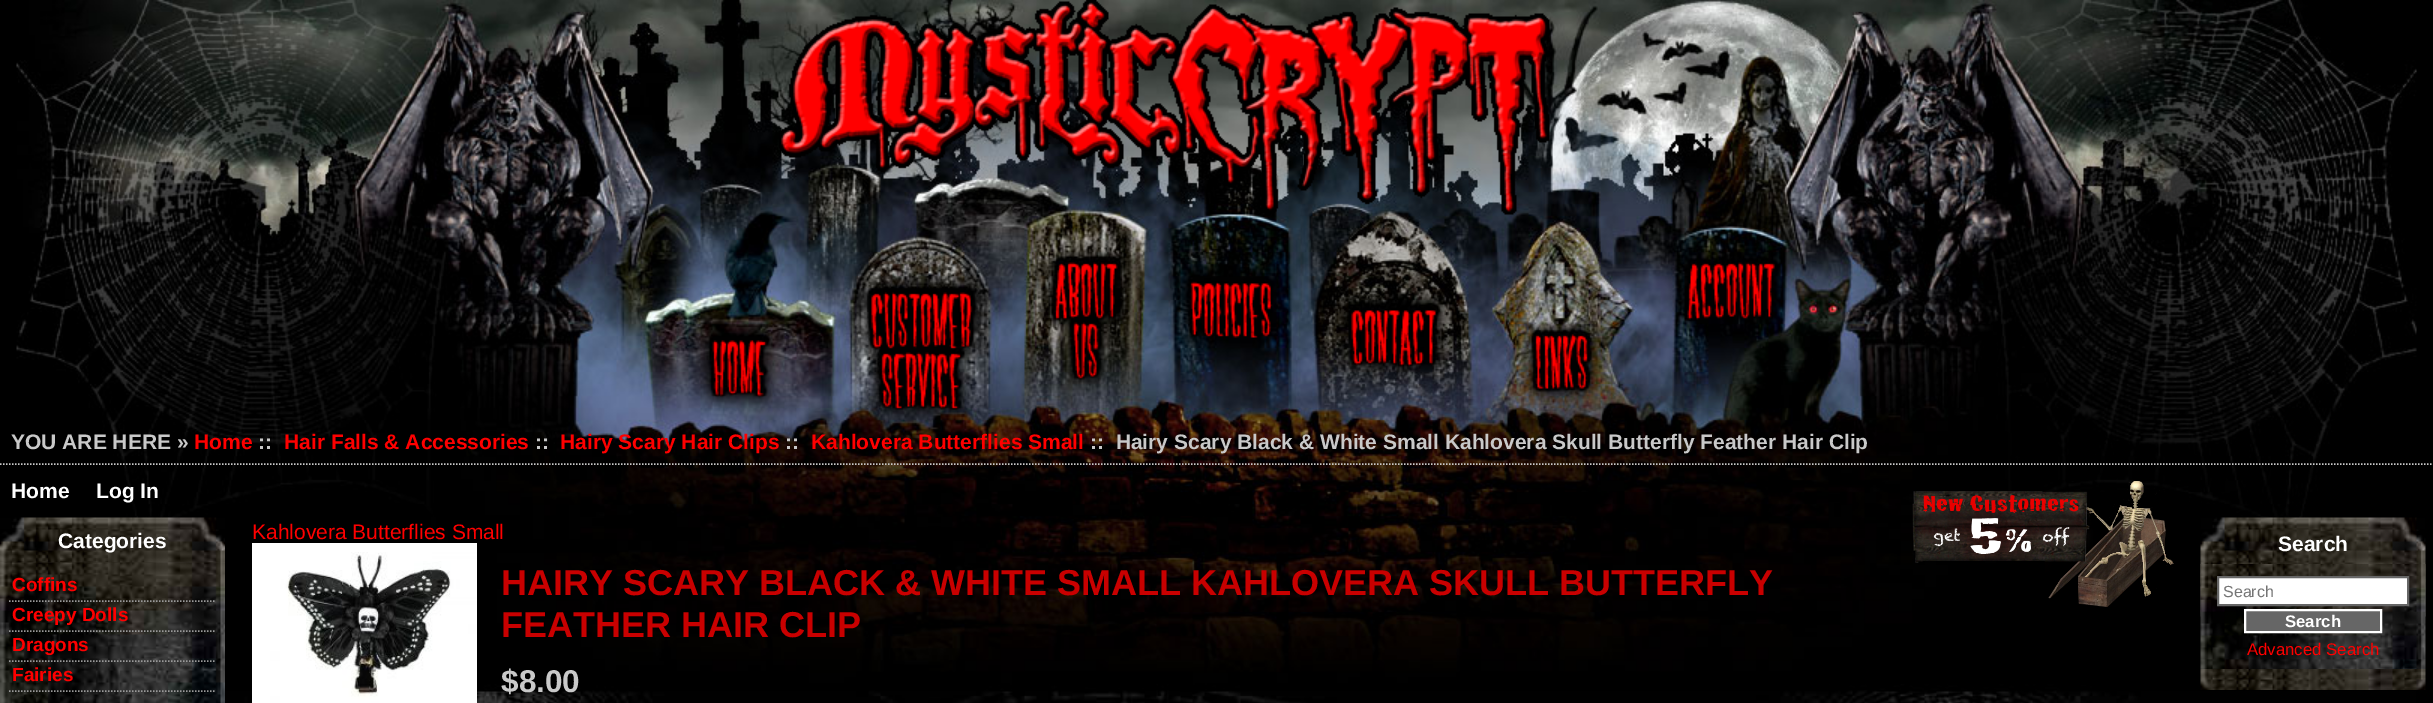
%!PS-Adobe-3.0
%%BoundingBox: 0 0 2433 703
%%LanguageLevel: 3
%%Pages: 1
%%EndComments
%%BeginProlog
/drawimage { 5 dict begin { /h /w /y /x /name } { exch def } forall
  gsave x y translate w h scale
  w h 8 [w 0 0 h 0 0] name (r) file false 3 colorimage grestore end } def
%%EndProlog
%%BeginSetup
<< /PageSize [2433 703] >> setpagedevice
%%EndSetup
%%Page: 1 1
0 703 translate 1 -1 scale
4 setmiterlimit
0 setgray
0 0 2433 703 rectfill
(images/1.raw) 16 0 2401 703 drawimage
(images/2.raw) 779 0 771 215 drawimage
(images/3.raw) 712 340 55 57 drawimage
(images/4.raw) 871 292 102 117 drawimage
(images/5.raw) 1055 262 63 117 drawimage
(images/6.raw) 1190 281 83 57 drawimage
(images/7.raw) 1351 310 85 57 drawimage
(images/8.raw) 1535 334 53 55 drawimage
(images/9.raw) 1687 262 88 58 drawimage
0.788 setgray
1.5 setlinewidth
[1.5 1.5] 0 setdash
newpath 0 464 moveto 2433 464 lineto stroke
(images/10.raw) 0 517 225 46 drawimage
(images/11.raw) 0 562 225 141 drawimage
0.6 setgray
newpath 9 601 moveto 216 601 lineto stroke
newpath 9 631 moveto 216 631 lineto stroke
newpath 9 661 moveto 216 661 lineto stroke
newpath 9 691 moveto 216 691 lineto stroke
(images/12.raw) 1912 481 262 126 drawimage
(images/13.raw) 252 543 225 160 drawimage
(images/14.raw) 2200 517 226 100 drawimage
(images/15.raw) 2200 564 226 105 drawimage
1 setgray
newpath 2218 577 moveto 2408 577 lineto 2408 605 lineto 2218 605 lineto closepath gsave fill grestore
0.4 setgray
2 setlinewidth
[] 0 setdash
stroke
newpath 2245 610 moveto 2381 610 lineto 2381 632 lineto 2245 632 lineto closepath gsave fill grestore
1 setgray
stroke
(images/16.raw) 2200 669 226 21 drawimage
/LiberationSans-Bold [21 0 0 -21 0 0] selectfont
0.788 setgray
11 449 moveto (YOU ARE HERE ») show
1 0 0 setrgbcolor
194 449 moveto (Home) show
0.788 setgray
258 449 moveto (::) show
1 0 0 setrgbcolor
284 449 moveto (Hair Falls & Accessories) show
0.788 setgray
535 449 moveto (::) show
1 0 0 setrgbcolor
560 449 moveto (Hairy Scary Hair Clips) show
0.788 setgray
785 449 moveto (::) show
1 0 0 setrgbcolor
811 449 moveto (Kahlovera Butterflies Small) show
0.788 setgray
1090 449 moveto (::  Hairy Scary Black & White Small Kahlovera Skull Butterfly Feather Hair Clip) show
1 setgray
11 498 moveto (Home) show
96 498 moveto (Log In) show
58 548 moveto (Categories) show
/LiberationSans-Bold [19 0 0 -19 0 0] selectfont
1 0 0 setrgbcolor
12 591 moveto (Coffins) show
12 621 moveto (Creepy Dolls) show
12 651 moveto (Dragons) show
12 681 moveto (Fairies) show
/LiberationSans-Regular [21 0 0 -21 0 0] selectfont
252 539 moveto (Kahlovera Butterflies Small) show
/LiberationSans-Bold [36 0 0 -36 0 0] selectfont
0.788 0 0 setrgbcolor
501 595 moveto (HAIRY SCARY BLACK & WHITE SMALL KAHLOVERA SKULL BUTTERFLY) show
501 637 moveto (FEATHER HAIR CLIP) show
/LiberationSans-Bold [31.5 0 0 -31.5 0 0] selectfont
0.788 setgray
501 692 moveto ($8.00) show
/LiberationSans-Bold [21 0 0 -21 0 0] selectfont
1 setgray
2278 551 moveto (Search) show
/LiberationSans-Regular [16 0 0 -16 0 0] selectfont
0.459 setgray
2223 597 moveto (Search) show
/LiberationSans-Bold [16.75 0 0 -16.75 0 0] selectfont
1 setgray
2285 627 moveto (Search) show
/LiberationSans-Regular [16.75 0 0 -16.75 0 0] selectfont
1 0 0 setrgbcolor
2247 655 moveto (Advanced Search) show
showpage
%%EOF
